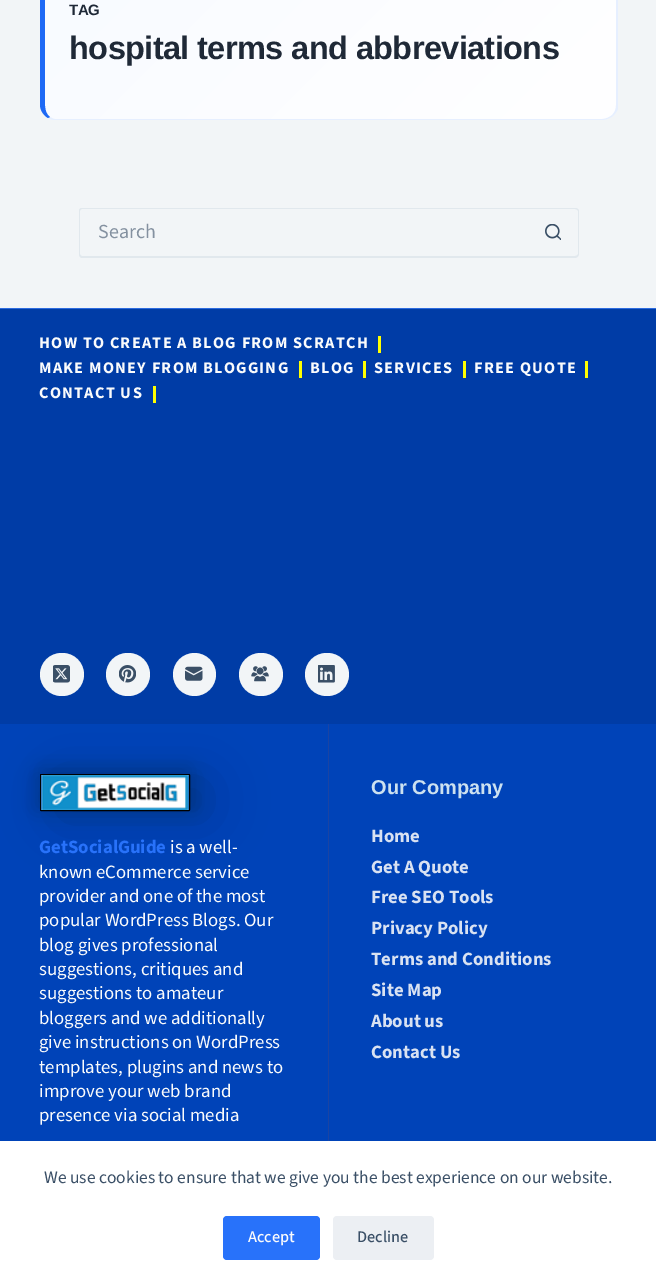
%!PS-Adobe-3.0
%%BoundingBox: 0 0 656 1284
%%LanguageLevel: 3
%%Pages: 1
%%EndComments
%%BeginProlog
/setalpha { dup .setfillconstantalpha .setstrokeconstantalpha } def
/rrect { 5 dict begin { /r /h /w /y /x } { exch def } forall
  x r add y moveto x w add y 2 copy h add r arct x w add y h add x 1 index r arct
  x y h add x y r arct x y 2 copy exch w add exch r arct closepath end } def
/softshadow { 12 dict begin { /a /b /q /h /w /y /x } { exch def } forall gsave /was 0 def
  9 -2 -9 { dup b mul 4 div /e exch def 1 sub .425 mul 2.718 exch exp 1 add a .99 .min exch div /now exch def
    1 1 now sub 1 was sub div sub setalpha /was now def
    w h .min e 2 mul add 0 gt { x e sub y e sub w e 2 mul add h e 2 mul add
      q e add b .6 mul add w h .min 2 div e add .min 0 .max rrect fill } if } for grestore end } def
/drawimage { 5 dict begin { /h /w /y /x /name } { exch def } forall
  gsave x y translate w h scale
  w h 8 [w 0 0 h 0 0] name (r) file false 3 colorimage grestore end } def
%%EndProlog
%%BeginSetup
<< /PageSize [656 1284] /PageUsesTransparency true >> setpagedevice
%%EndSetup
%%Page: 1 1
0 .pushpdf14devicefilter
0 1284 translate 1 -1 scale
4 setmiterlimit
0.949 0.961 0.969 setrgbcolor
0 0 656 1284 rectfill
gsave newpath 55 -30 moveto 602 -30 lineto 610 -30 616 -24 616 -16 curveto 616 105 lineto 616 113 610 119 602 119 curveto 55 119 lineto 49 119 45 113 45 105 curveto 45 -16 lineto 45 -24 49 -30 55 -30 curveto closepath clip newpath
<< /ShadingType 2 /ColorSpace /DeviceRGB /Coords [151 -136 511 224] /Extend [true true] /Function << /FunctionType 2 /Domain [0 1] /C0 [0.973 0.984 1] /C1 [1 1 1] /N 1 >> >> shfill grestore
0.902 0.937 1 setrgbcolor
newpath 613 -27 moveto 615 -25 617 -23 618 -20 curveto 618 109 lineto 617 111 615 114 613 116 curveto 612 115 lineto 615 112 616 109 616 105 curveto 616 -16 lineto 616 -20 615 -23 612 -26 curveto closepath fill
newpath 55 120 moveto 602 120 lineto 606 120 610 118 613 116 curveto 612 115 lineto 610 117 606 119 602 119 curveto 55 119 lineto 53 119 52 118 50 117 curveto 48 118 lineto 50 119 52 120 55 120 curveto closepath fill
0.118 0.412 0.961 setrgbcolor
newpath 40 -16 moveto 40 105 lineto 40 110 43 115 48 118 curveto 50 117 lineto 47 115 45 111 45 105 curveto 45 -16 lineto 45 -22 47 -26 50 -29 curveto 48 -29 lineto 43 -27 40 -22 40 -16 curveto closepath fill
0.882 0.91 0.929 setrgbcolor
newpath 82 208 moveto 529 208 lineto 529 258 lineto 82 258 lineto 80 258 79 256 79 254 curveto 79 211 lineto 79 209 80 208 82 208 curveto closepath 82 209 moveto 529 209 lineto 529 256 lineto 82 256 lineto 81 256 80 255 80 254 curveto 80 211 lineto 80 210 81 209 82 209 curveto closepath eofill
newpath 529 208 moveto 575 208 lineto 577 208 579 209 579 211 curveto 579 254 lineto 579 256 577 258 575 258 curveto 529 258 lineto closepath 529 209 moveto 575 209 lineto 576 209 578 210 578 211 curveto 578 254 lineto 578 255 576 256 575 256 curveto 529 256 lineto closepath eofill
(images/1.raw) 545 224 16 16 drawimage
0.949 0.961 0.969 setrgbcolor
1.9 setlinewidth
1 setlinecap
newpath 558.5 239.5 moveto 554.5 243 548.5 242.5 545.5 238.5 curveto stroke
0 0.235 0.651 setrgbcolor
0 309 656 415 rectfill
0.176 0.42 0.875 setrgbcolor
0 308 656 1 rectfill
1 1 0 setrgbcolor
378 336 3 17 rectfill
299 361 3 17 rectfill
363 361 3 17 rectfill
463 361 3 17 rectfill
585 361 3 17 rectfill
153 386 3 17 rectfill
0.949 0.961 0.969 setrgbcolor
40 653 44 43 21.5 rrect fill
(images/2.raw) 53 665 17 18 drawimage
106 653 44 43 21.5 rrect fill
(images/3.raw) 119 665 17 18 drawimage
newpath 194.5 674.5 21.5 0 360 arc closepath fill
(images/4.raw) 185 666 18 15 drawimage
239 653 44 43 21.5 rrect fill
(images/5.raw) 251 666 18 16 drawimage
305 653 44 43 21.5 rrect fill
(images/6.raw) 318 665 17 18 drawimage
0 0.263 0.722 setrgbcolor
0 724 656 417 rectfill
0 setgray
59 781 150 38 1 27.5 0.16 softshadow
40 766 150 38 1 9 0.1 softshadow
33 774 150 37 1 9 0.1 softshadow
48 774 150 37 1 9 0.1 softshadow
1 setlinewidth
0 setlinecap
40.5 774.5 149 36 0.5 rrect stroke
(images/7.raw) 41 775 148 35 drawimage
0.106 0.267 0.639 setrgbcolor
328 724 1 417 rectfill
1 setgray
0 1141 656 143 rectfill
0.157 0.447 0.98 setrgbcolor
223 1216 97 44 4 rrect fill
0.925 0.937 0.953 setrgbcolor
333 1216 101 44 4 rrect fill
/LiberationSans-Bold [15 0 0 -15 0 0] selectfont
0.122 0.161 0.216 setrgbcolor
69 15 moveto -0.6 0 (TAG) ashow
/LiberationSans-Bold [32.5 0 0 -32.5 0 0] selectfont
69 59 moveto -0.6 0 (hospital terms and abbreviations) ashow
/SourceSans3-Regular [20 0 0 -20 0 0] selectfont
0.518 0.569 0.627 setrgbcolor
98 238 moveto (Search) show
/SourceSans3-Bold [16.25 0 0 -16.25 0 0] selectfont
0.98 0.984 0.988 setrgbcolor
39 348 moveto 1.25 0 (HOW TO CREATE A BLOG FROM SCRATCH) ashow
39 373 moveto 1.25 0 (MAKE MONEY FROM BLOGGING) ashow
310 373 moveto 1.25 0 (BLOG) ashow
374 373 moveto 1.25 0 (SERVICES) ashow
474 373 moveto 1.25 0 (FREE QUOTE) ashow
39 398 moveto 1.25 0 (CONTACT US) ashow
/SourceSans3-Bold [18.75 0 0 -18.75 0 0] selectfont
0.157 0.447 0.98 setrgbcolor
39 853 moveto (GetSocialGuide) show
/SourceSans3-Regular [18.75 0 0 -18.75 0 0] selectfont
0.98 0.984 0.988 setrgbcolor
170 853 moveto (is a well-) show
39 878 moveto (known eCommerce service) show
39 902 moveto (provider and one of the most) show
39 926 moveto (popular WordPress Blogs. Our) show
39 951 moveto (blog gives professional) show
39 975 moveto (suggestions, critiques and) show
39 999 moveto (suggestions to amateur) show
39 1024 moveto (bloggers and we additionally) show
39 1048 moveto (give instructions on WordPress) show
39 1073 moveto (templates, plugins and news to) show
39 1097 moveto (improve your web brand) show
39 1121 moveto (presence via social media) show
/LiberationSans-Bold [20 0 0 -20 0 0] selectfont
0.8 0.882 0.941 setrgbcolor
371 794 moveto (Our Company) show
/SourceSans3-Bold [18.75 0 0 -18.75 0 0] selectfont
0.851 0.886 0.949 setrgbcolor
371 842 moveto (Home) show
371 873 moveto (Get A Quote) show
371 903 moveto (Free SEO Tools) show
371 934 moveto (Privacy Policy) show
371 965 moveto (Terms and Conditions) show
371 996 moveto (Site Map) show
371 1027 moveto (About us) show
371 1058 moveto (Contact Us) show
/SourceSans3-Regular [17.5 0 0 -17.5 0 0] selectfont
0.227 0.31 0.4 setrgbcolor
44 1183 moveto (We use cookies to ensure that we give you the best experience on our website.) show
/SourceSans3-Medium [16.25 0 0 -16.25 0 0] selectfont
0.98 0.984 0.988 setrgbcolor
248 1242 moveto (Accept) show
0.227 0.31 0.4 setrgbcolor
357 1242 moveto (Decline) show
.poppdf14devicefilter showpage
%%EOF
